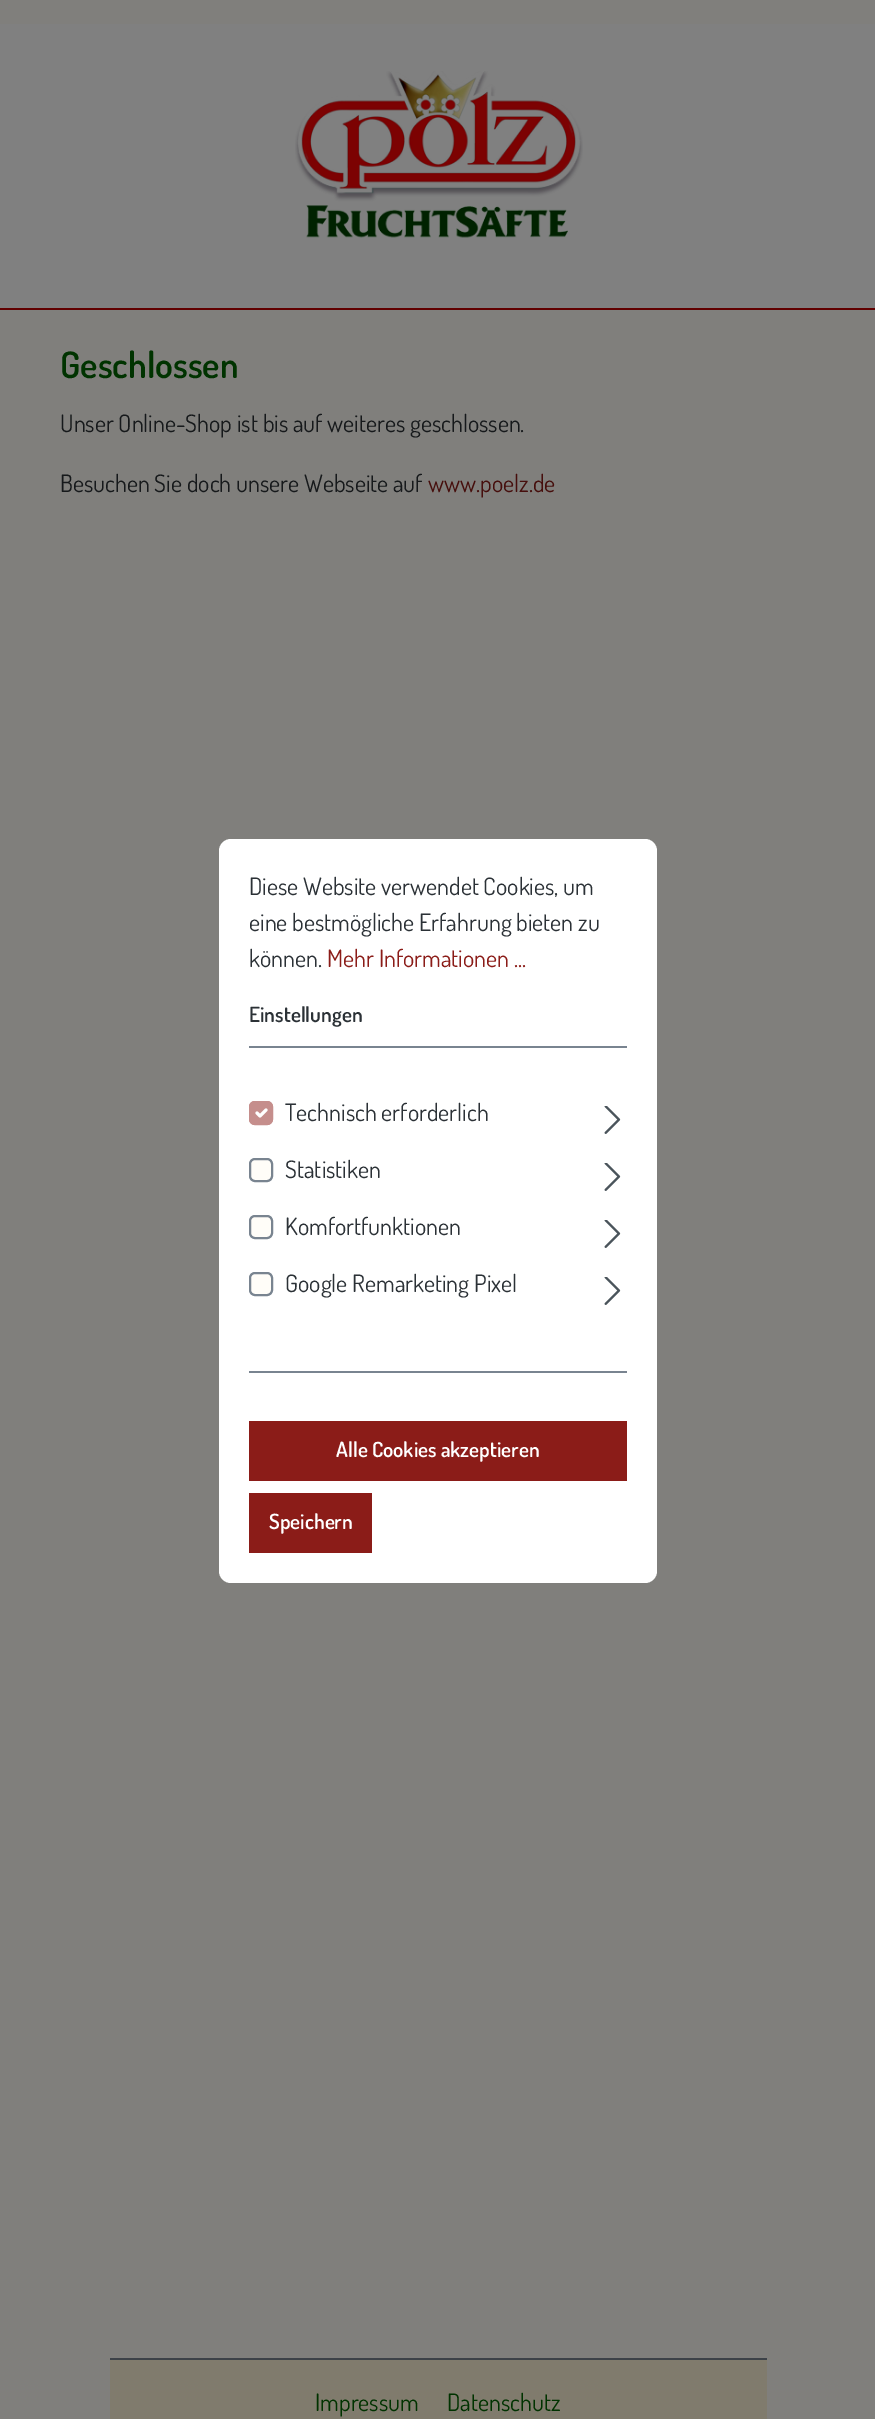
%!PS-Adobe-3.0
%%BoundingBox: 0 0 875 2419
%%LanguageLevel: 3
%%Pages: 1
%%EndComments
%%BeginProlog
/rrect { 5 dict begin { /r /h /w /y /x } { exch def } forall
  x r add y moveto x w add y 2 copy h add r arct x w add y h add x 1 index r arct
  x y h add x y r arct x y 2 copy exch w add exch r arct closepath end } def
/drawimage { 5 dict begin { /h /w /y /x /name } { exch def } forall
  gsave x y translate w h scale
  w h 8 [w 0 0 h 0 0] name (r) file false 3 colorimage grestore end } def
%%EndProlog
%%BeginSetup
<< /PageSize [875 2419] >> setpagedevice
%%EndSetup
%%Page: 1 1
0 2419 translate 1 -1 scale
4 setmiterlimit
0.502 0.498 0.486 setrgbcolor
0 0 875 2419 rectfill
0.502 setgray
0 24 875 284 rectfill
0.38 0 0 setrgbcolor
0 308 875 2 rectfill
(images/1.raw) 295 71 288 167 drawimage
1 setgray
219 839 438 744 12 rrect fill
0.475 0.518 0.565 setrgbcolor
249 1046 378 2 rectfill
249 1371 378 2 rectfill
0.773 0.557 0.549 setrgbcolor
249 1101 24 24 6 rrect fill
1 setgray
3.1 setlinewidth
1 setlinecap
1 setlinejoin
newpath 257 1113 moveto 260 1116 lineto 266 1110 lineto stroke
0.773 0.557 0.549 setrgbcolor
2 setlinewidth
0 setlinecap
0 setlinejoin
250 1102 22 22 5 rrect stroke
(images/2.raw) 604 1106 17 28 drawimage
1 0.992 0.973 setrgbcolor
250 1159 22 22 5 rrect gsave fill grestore
0.475 0.518 0.565 setrgbcolor
stroke
(images/2.raw) 604 1163 17 28 drawimage
1 0.992 0.973 setrgbcolor
250 1216 22 22 5 rrect gsave fill grestore
0.475 0.518 0.565 setrgbcolor
stroke
(images/2.raw) 604 1220 17 28 drawimage
1 0.992 0.973 setrgbcolor
250 1273 22 22 5 rrect gsave fill grestore
0.475 0.518 0.565 setrgbcolor
stroke
(images/2.raw) 604 1277 17 28 drawimage
0.545 0.11 0.094 setrgbcolor
249 1421 378 60 rectfill
249 1493 123 60 rectfill
0.502 0.482 0.427 setrgbcolor
110 2360 657 59 rectfill
0.239 0.259 0.282 setrgbcolor
110 2358 657 2 rectfill
/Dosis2-ExtraLight [36.5 0 0 -36.5 0 0] selectfont
0 0.2 0 setrgbcolor
60 378 moveto (Geschlossen) show
/Dosis-ExtraLight [24 0 0 -24 0 0] selectfont
0.086 0.098 0.106 setrgbcolor
60 432 moveto (Unser Online-Shop ist bis auf weiteres geschlossen.) show
60 492 moveto (Besuchen Sie doch unsere Webseite auf) show
0.275 0.055 0.047 setrgbcolor
428 492 moveto (www.poelz.de) show
0.169 0.192 0.212 setrgbcolor
249 895 moveto (Diese Website verwendet Cookies, um) show
249 931 moveto (eine bestmögliche Erfahrung bieten zu) show
249 967 moveto (können.) show
0.545 0.11 0.094 setrgbcolor
327 967 moveto (Mehr Informationen ...) show
/Dosis2-ExtraLight [21 0 0 -21 0 0] selectfont
0.169 0.192 0.212 setrgbcolor
249 1022 moveto (Einstellungen) show
/Dosis-ExtraLight [24 0 0 -24 0 0] selectfont
285 1121 moveto (Technisch erforderlich) show
285 1178 moveto (Statistiken) show
285 1235 moveto (Komfortfunktionen) show
285 1292 moveto (Google Remarketing Pixel) show
/Dosis2-ExtraLight [21 0 0 -21 0 0] selectfont
1 setgray
336 1457 moveto (Alle Cookies akzeptieren) show
269 1529 moveto (Speichern) show
/Dosis-ExtraLight [24 0 0 -24 0 0] selectfont
0 0.2 0 setrgbcolor
315 2411 moveto (Impressum) show
447 2411 moveto (Datenschutz) show
showpage
%%EOF
